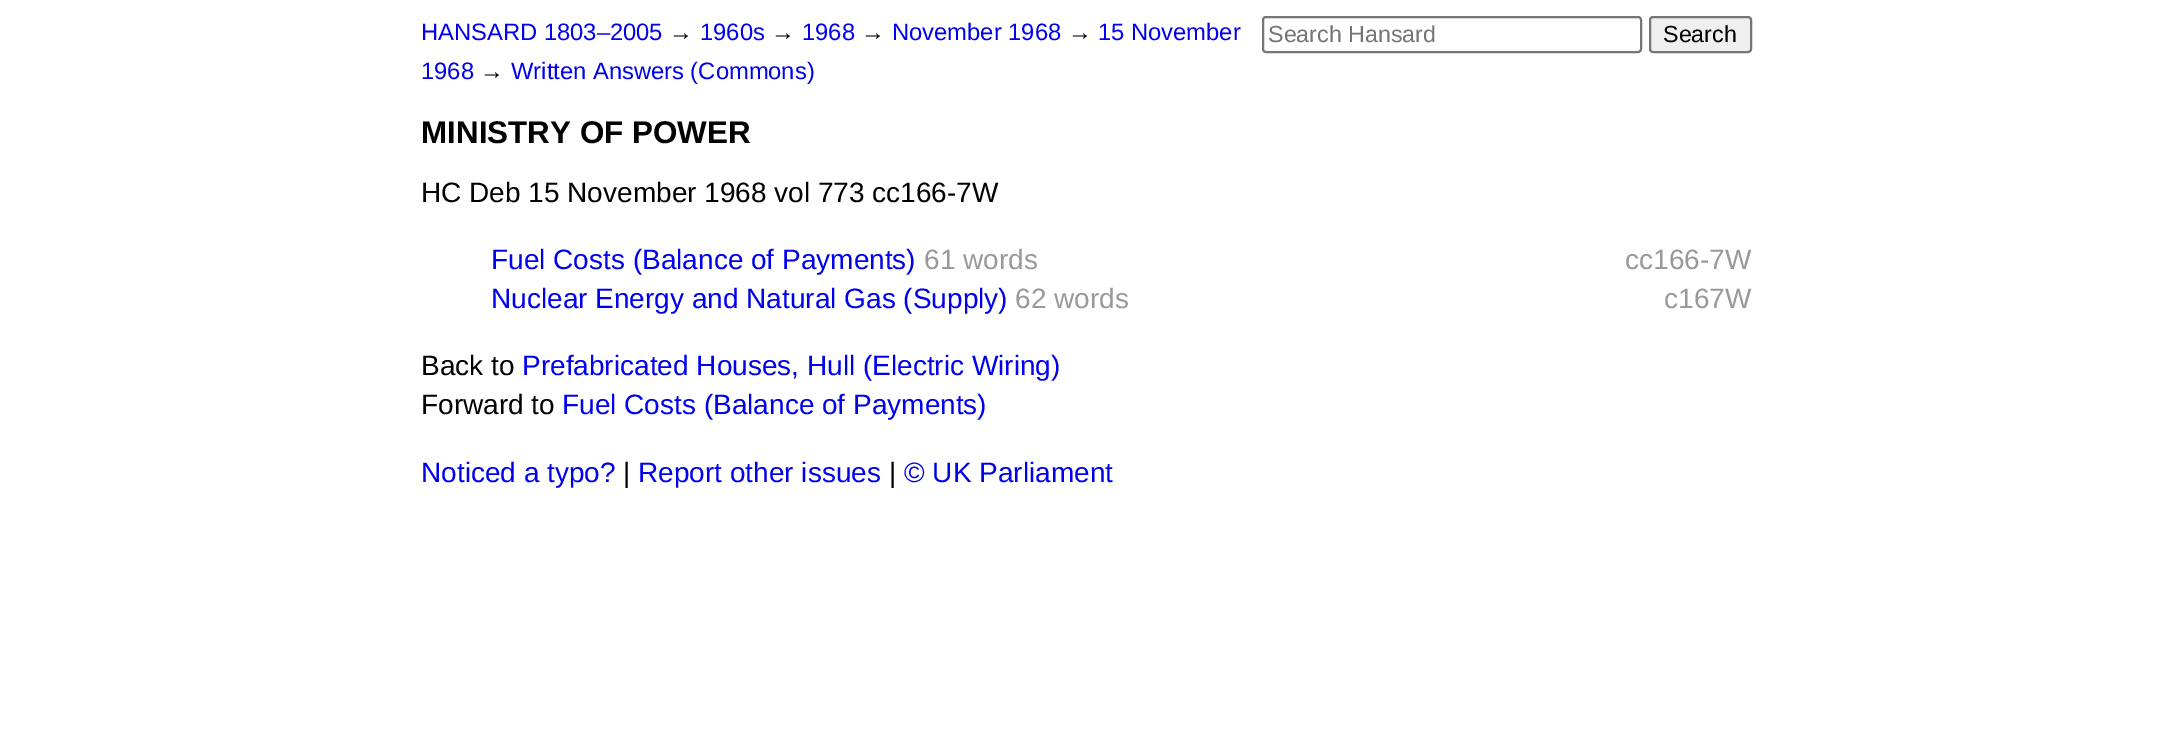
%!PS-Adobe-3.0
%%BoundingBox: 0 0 2171 751
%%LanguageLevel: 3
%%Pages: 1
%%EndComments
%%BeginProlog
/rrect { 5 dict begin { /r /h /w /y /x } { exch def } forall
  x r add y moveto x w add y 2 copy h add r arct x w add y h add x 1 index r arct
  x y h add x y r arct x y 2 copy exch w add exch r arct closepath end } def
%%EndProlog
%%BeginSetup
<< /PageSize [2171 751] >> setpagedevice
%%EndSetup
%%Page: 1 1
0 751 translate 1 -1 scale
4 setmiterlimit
1 setgray
0 0 2171 751 rectfill
0.463 setgray
2 setlinewidth
1263 17 378 35 3 rrect stroke
0.937 setgray
1650 17 101 35 3 rrect gsave fill grestore
0.463 setgray
stroke
/LiberationSans-Regular [23.75 0 0 -23.75 0 0] selectfont
0 0 0.933 setrgbcolor
421 40 moveto (HANSARD 1803–2005) show
0 setgray
669 40 moveto (→) show
0 0 0.933 setrgbcolor
700 40 moveto (1960s) show
0 setgray
771 40 moveto (→) show
0 0 0.933 setrgbcolor
802 40 moveto (1968) show
0 setgray
861 40 moveto (→) show
0 0 0.933 setrgbcolor
892 40 moveto (November 1968) show
0 setgray
1068 40 moveto (→) show
0 0 0.933 setrgbcolor
1098 40 moveto (15 November) show
421 79 moveto (1968) show
0 setgray
480 79 moveto (→) show
0 0 0.933 setrgbcolor
511 79 moveto (Written Answers \(Commons\)) show
/LiberationSans-Regular [23.25 0 0 -23.25 0 0] selectfont
0.459 setgray
1268 42 moveto (Search Hansard) show
0 setgray
1663 42 moveto (Search) show
/LiberationSans-Bold [31.4 0 0 -31.4 0 0] selectfont
421 143 moveto (MINISTRY OF POWER) show
/LiberationSans-Regular [28 0 0 -28 0 0] selectfont
421 202 moveto (HC Deb 15 November 1968 vol 773 cc166-7W) show
0 0 0.933 setrgbcolor
491 269 moveto (Fuel Costs \(Balance of Payments\)) show
0.6 setgray
924 269 moveto (61 words) show
1625 269 moveto (cc166-7W) show
0 0 0.933 setrgbcolor
491 308 moveto (Nuclear Energy and Natural Gas \(Supply\)) show
0.6 setgray
1015 308 moveto (62 words) show
1664 308 moveto (c167W) show
0 setgray
421 375 moveto (Back to) show
0 0 0.933 setrgbcolor
522 375 moveto (Prefabricated Houses, Hull \(Electric Wiring\)) show
0 setgray
421 414 moveto (Forward to) show
0 0 0.933 setrgbcolor
562 414 moveto (Fuel Costs \(Balance of Payments\)) show
421 482 moveto (Noticed a typo?) show
0 setgray
623 482 moveto (|) show
0 0 0.933 setrgbcolor
638 482 moveto (Report other issues) show
0 setgray
889 482 moveto (|) show
0 0 0.933 setrgbcolor
904 482 moveto (© UK Parliament) show
showpage
%%EOF
